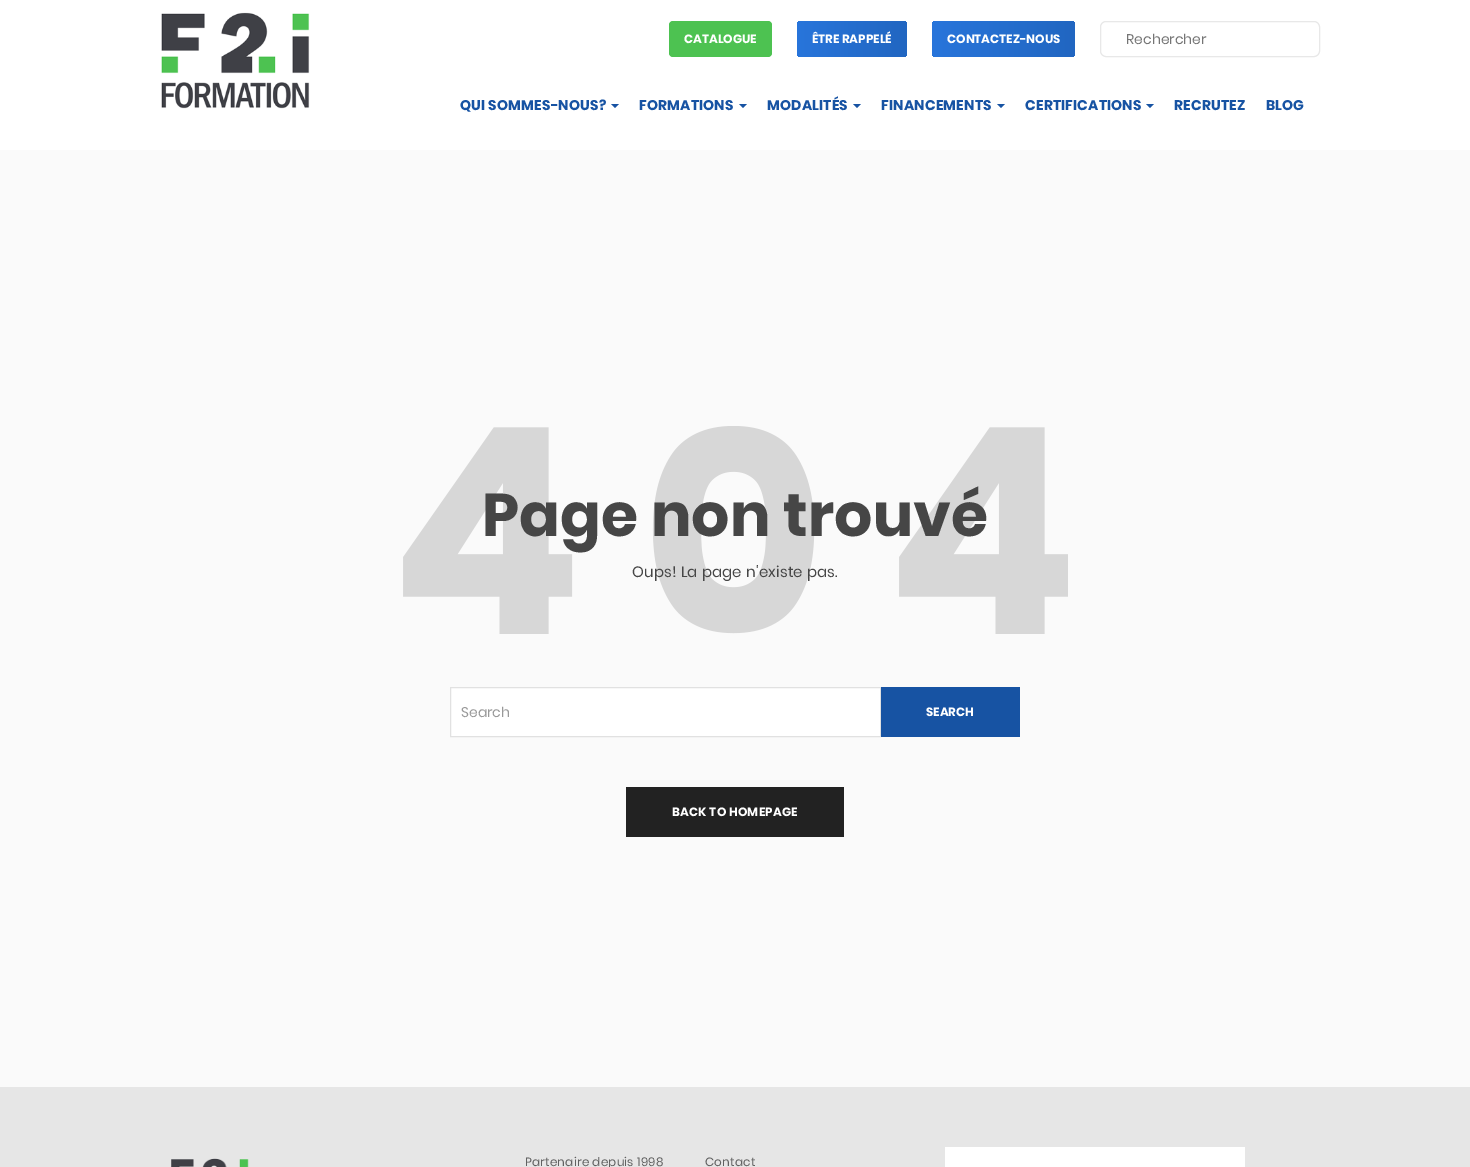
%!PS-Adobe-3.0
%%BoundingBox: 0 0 1470 1167
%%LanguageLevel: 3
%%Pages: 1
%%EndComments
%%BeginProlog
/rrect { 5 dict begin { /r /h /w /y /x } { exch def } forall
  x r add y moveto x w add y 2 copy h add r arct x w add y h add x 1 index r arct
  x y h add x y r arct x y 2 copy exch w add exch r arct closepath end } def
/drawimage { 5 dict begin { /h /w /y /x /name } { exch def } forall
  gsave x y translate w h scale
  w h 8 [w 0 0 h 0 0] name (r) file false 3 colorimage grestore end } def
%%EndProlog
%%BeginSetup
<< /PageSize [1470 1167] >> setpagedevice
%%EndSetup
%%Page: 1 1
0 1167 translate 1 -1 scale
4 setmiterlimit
1 setgray
0 0 1470 1167 rectfill
(images/1.raw) 161 12 149 97 drawimage
0.302 0.761 0.318 setrgbcolor
669 21 103 36 4 rrect fill
gsave 797 21 110 36 4 rrect clip newpath
<< /ShadingType 2 /ColorSpace /DeviceRGB /Coords [907 39 797 39] /Extend [true true] /Function << /FunctionType 2 /Domain [0 1] /C0 [0.129 0.4 0.757] /C1 [0.157 0.459 0.859] /N 1 >> >> shfill grestore
gsave 932 21 143 36 4 rrect clip newpath
<< /ShadingType 2 /ColorSpace /DeviceRGB /Coords [1075 39 932 39] /Extend [true true] /Function << /FunctionType 2 /Domain [0 1] /C0 [0.129 0.4 0.757] /C1 [0.157 0.459 0.859] /N 1 >> >> shfill grestore
0.91 setgray
1100.5 21.5 219 35 5.5 rrect stroke
0.09 0.325 0.639 setrgbcolor
newpath 611 104 moveto 619 104 lineto 615 108 lineto closepath fill
newpath 739 104 moveto 747 104 lineto 743 108 lineto closepath fill
newpath 853 104 moveto 861 104 lineto 857 108 lineto closepath fill
newpath 997 104 moveto 1005 104 lineto 1001 108 lineto closepath fill
newpath 1146 104 moveto 1154 104 lineto 1150 108 lineto closepath fill
0.98 setgray
0 150 1470 937 rectfill
(images/2.raw) 403 426 665 208 drawimage
1 setgray
newpath 450.5 687.5 moveto 880.5 687.5 lineto 880.5 736.5 lineto 450.5 736.5 lineto closepath gsave fill grestore
0.882 setgray
stroke
0.09 0.325 0.639 setrgbcolor
881 687 139 50 rectfill
0.133 setgray
626 787 218 50 rectfill
0.902 setgray
0 1087 1470 80 rectfill
(images/3.raw) 171 1158 78 9 drawimage
1 setgray
945 1147 300 20 rectfill
/Poppins-Bold [12 0 0 -12 0 0] selectfont
684 43 moveto (CATALOGUE) show
812 43 moveto (ÊTRE RAPPELÉ) show
947 43 moveto (CONTACTEZ-NOUS) show
/Poppins-Regular [14 0 0 -14 0 0] selectfont
0.459 setgray
1126 44 moveto (Rechercher) show
/Poppins-Bold [14 0 0 -14 0 0] selectfont
0.09 0.325 0.639 setrgbcolor
460 110 moveto 0.2 0 (QUI SOMMES-NOUS?) ashow
639 110 moveto 0.2 0 (FORMATIONS) ashow
767 110 moveto 0.2 0 (MODALITÉS) ashow
881 110 moveto 0.2 0 (FINANCEMENTS) ashow
1025 110 moveto 0.2 0 (CERTIFICATIONS) ashow
1174 110 moveto 0.2 0 (RECRUTEZ) ashow
1266 110 moveto 0.2 0 (BLOG) ashow
/Poppins-Bold [60 0 0 -60 0 0] selectfont
0.275 setgray
482 536 moveto 0.2 0 (Page non trouvé) ashow
/Poppins-Regular [15 0 0 -15 0 0] selectfont
632 577 moveto 0.2 0 (Oups! La page n'existe pas.) ashow
/Poppins-Regular [14 0 0 -14 0 0] selectfont
0.6 setgray
461 717 moveto (Search) show
/Poppins-Bold [12 0 0 -12 0 0] selectfont
1 setgray
926 716 moveto (SEARCH) show
672 816 moveto 0.2 0 (BACK TO HOMEPAGE) ashow
/Poppins-Regular [12 0 0 -12 0 0] selectfont
0.38 setgray
525 1166 moveto 0.2 0 (Partenaire depuis 1998) ashow
705 1166 moveto 0.2 0 (Contact) ashow
showpage
%%EOF
